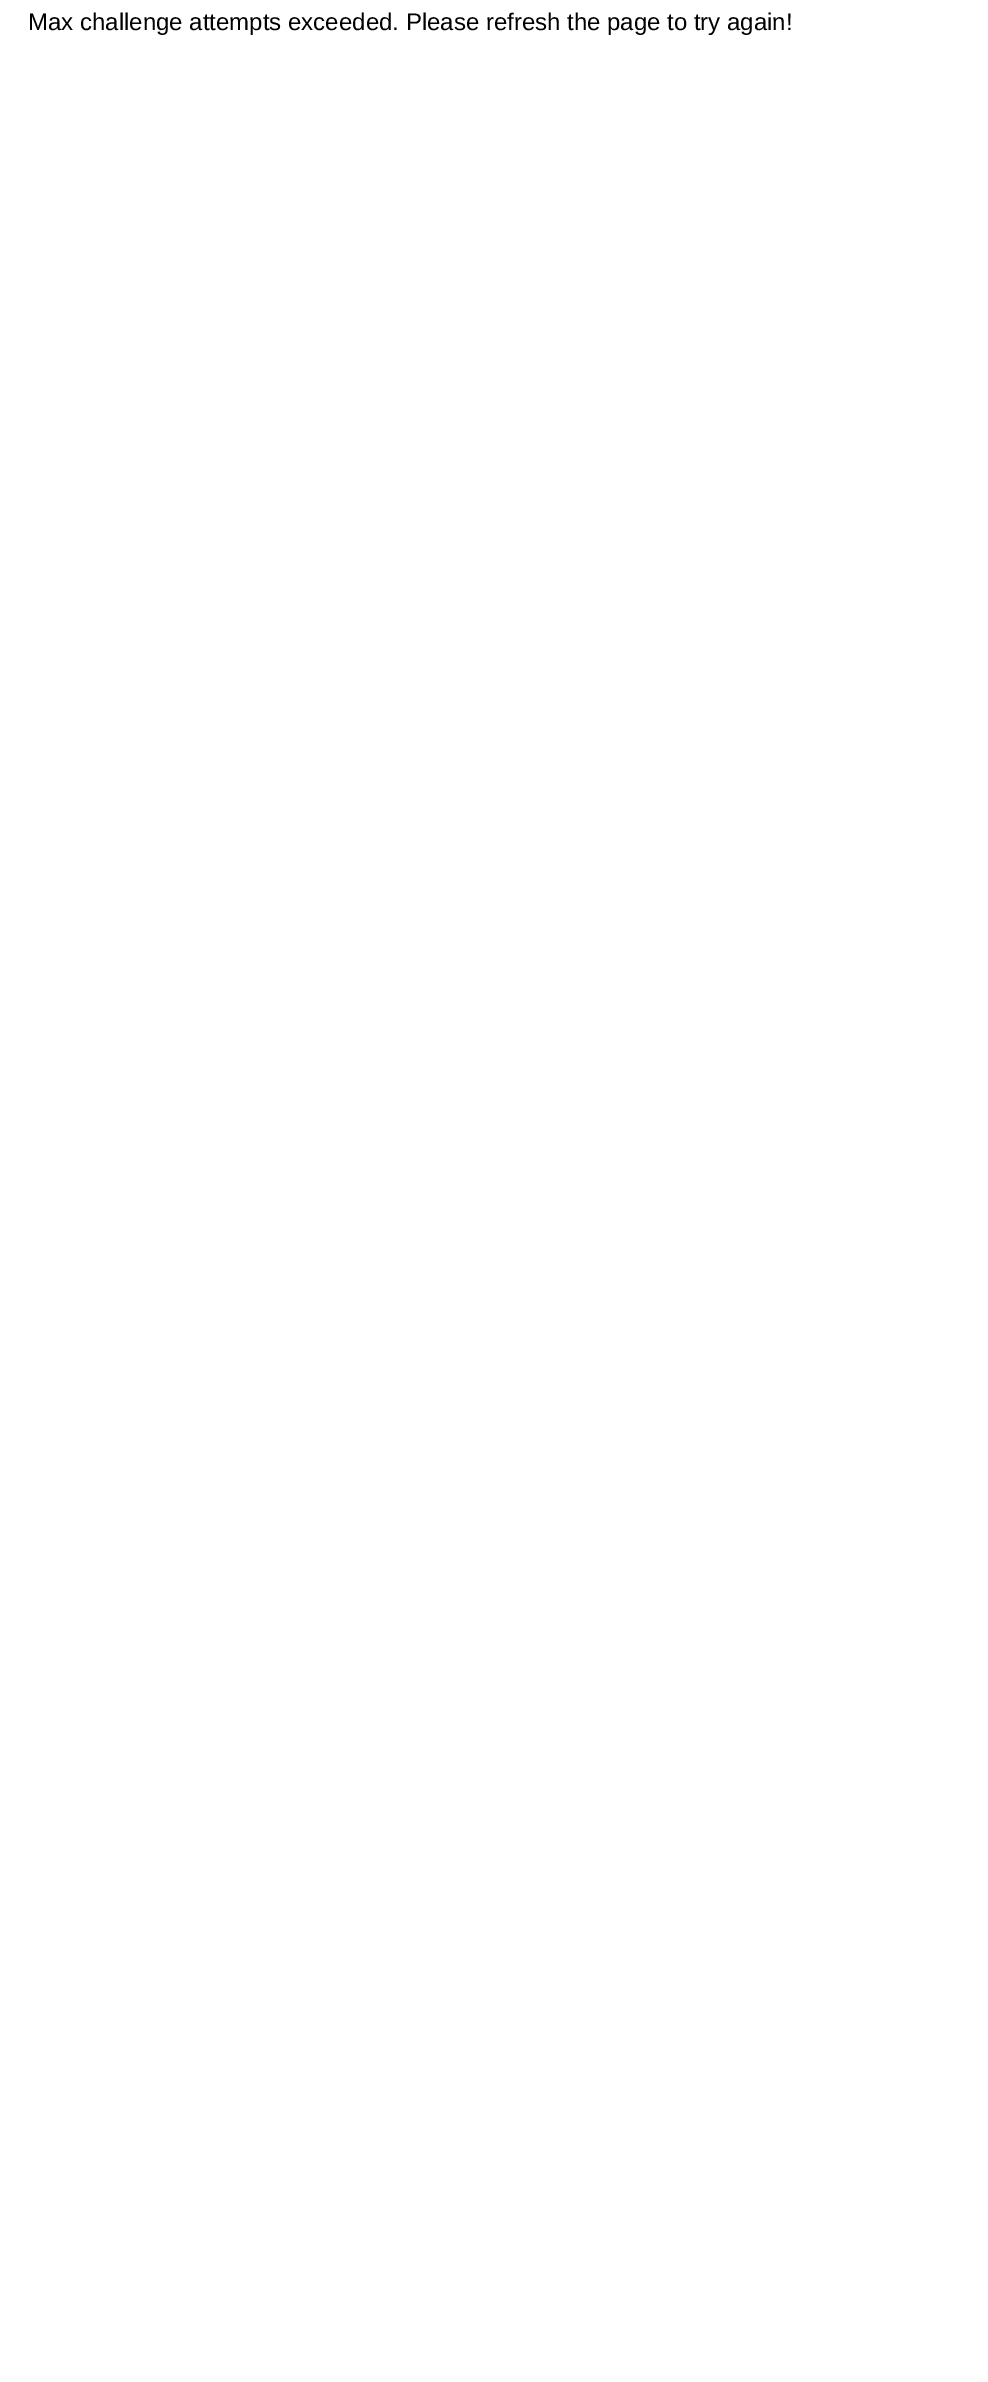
%!PS-Adobe-3.0
%%BoundingBox: 0 0 988 2382
%%LanguageLevel: 3
%%Pages: 1
%%EndComments
%%BeginProlog
%%EndProlog
%%BeginSetup
<< /PageSize [988 2382] >> setpagedevice
%%EndSetup
%%Page: 1 1
0 2382 translate 1 -1 scale
4 setmiterlimit
1 setgray
0 0 988 2382 rectfill
/LiberationSans-Regular [24 0 0 -24 0 0] selectfont
0 setgray
28 30 moveto (Max challenge attempts exceeded. Please refresh the page to try again!) show
showpage
%%EOF
